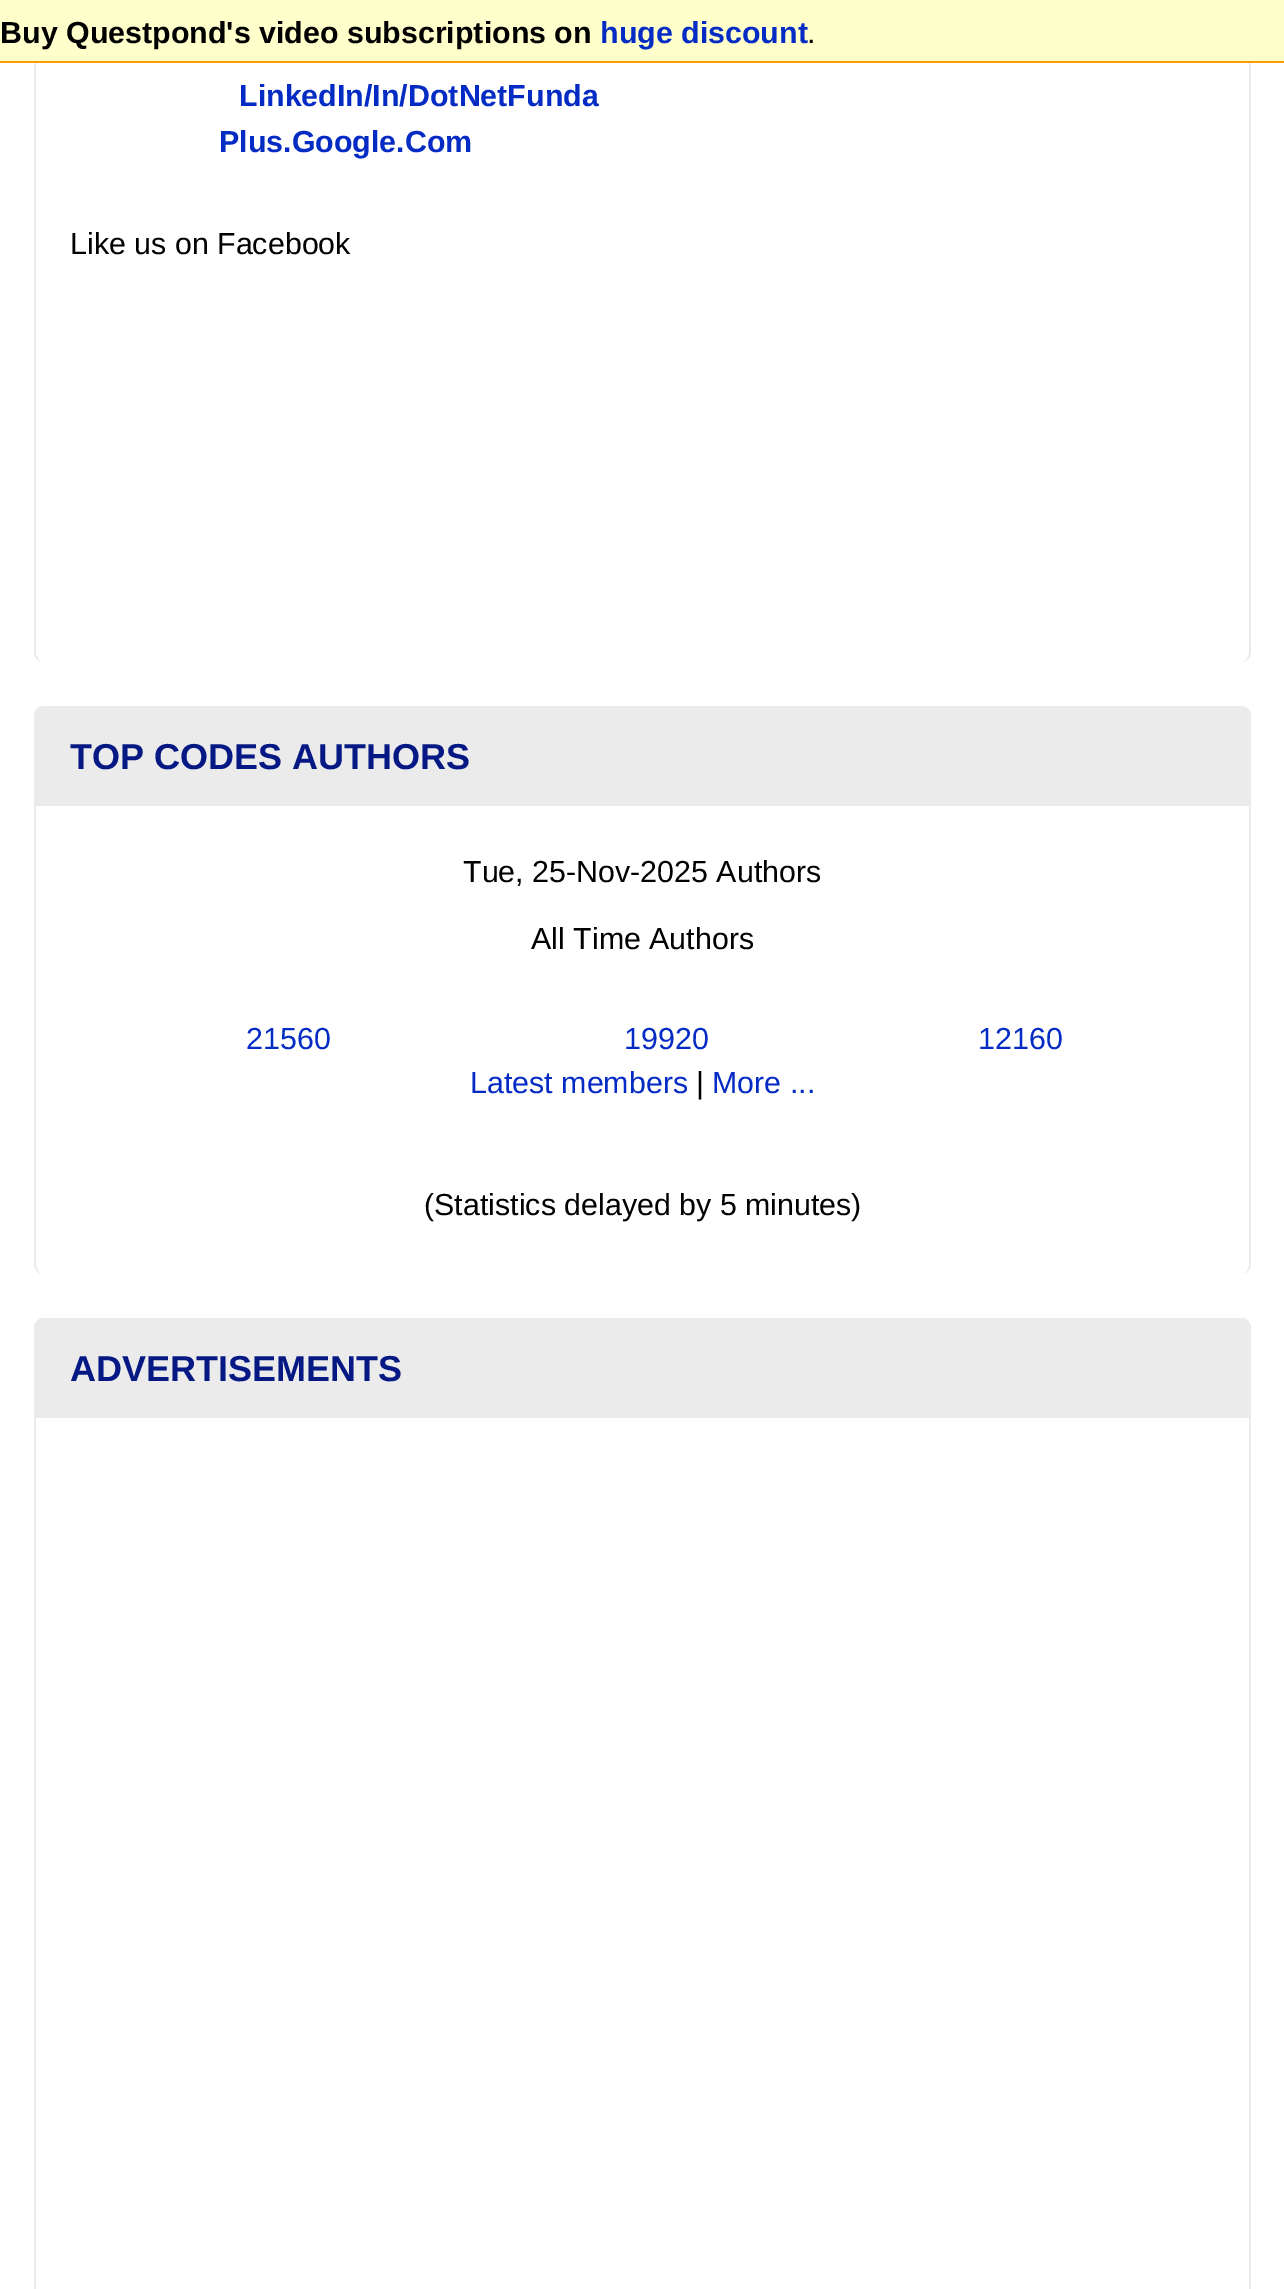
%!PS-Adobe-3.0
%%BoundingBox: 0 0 1284 2289
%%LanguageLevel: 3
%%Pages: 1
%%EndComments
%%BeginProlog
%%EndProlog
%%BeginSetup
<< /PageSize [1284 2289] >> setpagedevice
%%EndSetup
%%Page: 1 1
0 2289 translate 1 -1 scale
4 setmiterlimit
1 setgray
0 0 1284 2289 rectfill
0.922 setgray
newpath 43 -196 moveto 1242 -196 lineto 1247 -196 1251 -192 1251 -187 curveto 1251 652 lineto 1251 657 1247 662 1242 662 curveto 43 662 lineto 38 662 34 657 34 652 curveto 34 -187 lineto 34 -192 38 -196 43 -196 curveto closepath 43 -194 moveto 1242 -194 lineto 1246 -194 1249 -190 1249 -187 curveto 1249 652 lineto 1249 657 1246 662 1242 662 curveto 43 662 lineto 39 662 36 657 36 652 curveto 36 -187 lineto 36 -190 39 -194 43 -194 curveto closepath eofill
1 1 0.8 setrgbcolor
0 0 1284 61 rectfill
1 0.6 0 setrgbcolor
0 61 1284 2 rectfill
0.922 setgray
newpath 43 706 moveto 1242 706 lineto 1247 706 1251 711 1251 716 curveto 1251 1264 lineto 1251 1269 1247 1274 1242 1274 curveto 43 1274 lineto 38 1274 34 1269 34 1264 curveto 34 716 lineto 34 711 38 706 43 706 curveto closepath 43 709 moveto 1242 709 lineto 1246 709 1249 712 1249 716 curveto 1249 1264 lineto 1249 1269 1246 1274 1242 1274 curveto 43 1274 lineto 39 1274 36 1269 36 1264 curveto 36 716 lineto 36 712 39 709 43 709 curveto closepath eofill
newpath 43 709 moveto 1242 709 lineto 1246 709 1249 712 1249 716 curveto 1249 806 lineto 36 806 lineto 36 716 lineto 36 712 39 709 43 709 curveto closepath fill
newpath 43 1318 moveto 1242 1318 lineto 1247 1318 1251 1323 1251 1328 curveto 1251 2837 lineto 1251 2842 1247 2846 1242 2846 curveto 43 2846 lineto 38 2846 34 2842 34 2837 curveto 34 1328 lineto 34 1323 38 1318 43 1318 curveto closepath 43 1321 moveto 1242 1321 lineto 1246 1321 1249 1324 1249 1328 curveto 1249 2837 lineto 1249 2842 1246 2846 1242 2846 curveto 43 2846 lineto 39 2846 36 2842 36 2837 curveto 36 1328 lineto 36 1324 39 1321 43 1321 curveto closepath eofill
newpath 43 1321 moveto 1242 1321 lineto 1246 1321 1249 1324 1249 1328 curveto 1249 1418 lineto 36 1418 lineto 36 1328 lineto 36 1324 39 1321 43 1321 curveto closepath fill
/LiberationSans-Bold [30.4 0 0 -30.4 0 0] selectfont
0 setgray
0 43 moveto (Buy Questpond's video subscriptions on) show
0.016 0.169 0.769 setrgbcolor
600 43 moveto (huge discount) show
/LiberationSans-Regular [30.4 0 0 -30.4 0 0] selectfont
0 setgray
807 43 moveto (.) show
/LiberationSans-Bold [30.4 0 0 -30.4 0 0] selectfont
0.016 0.169 0.769 setrgbcolor
239 106 moveto (LinkedIn/In/DotNetFunda) show
219 152 moveto (Plus.Google.Com) show
/LiberationSans-Regular [30.4 0 0 -30.4 0 0] selectfont
0 setgray
70 254 moveto (Like us on Facebook) show
/LiberationSans-Bold [36 0 0 -36 0 0] selectfont
0.02 0.094 0.514 setrgbcolor
70 769 moveto (TOP CODES AUTHORS) show
/LiberationSans-Regular [30.4 0 0 -30.4 0 0] selectfont
0 setgray
463 882 moveto (Tue, 25-Nov-2025 Authors) show
531 949 moveto (All Time Authors) show
0.016 0.169 0.769 setrgbcolor
246 1049 moveto (21560) show
624 1049 moveto (19920) show
978 1049 moveto (12160) show
470 1093 moveto (Latest members) show
0 setgray
696 1093 moveto (|) show
0.016 0.169 0.769 setrgbcolor
712 1093 moveto (More ...) show
0 setgray
424 1215 moveto (\(Statistics delayed by 5 minutes\)) show
/LiberationSans-Bold [36 0 0 -36 0 0] selectfont
0.02 0.094 0.514 setrgbcolor
70 1381 moveto (ADVERTISEMENTS) show
showpage
%%EOF
